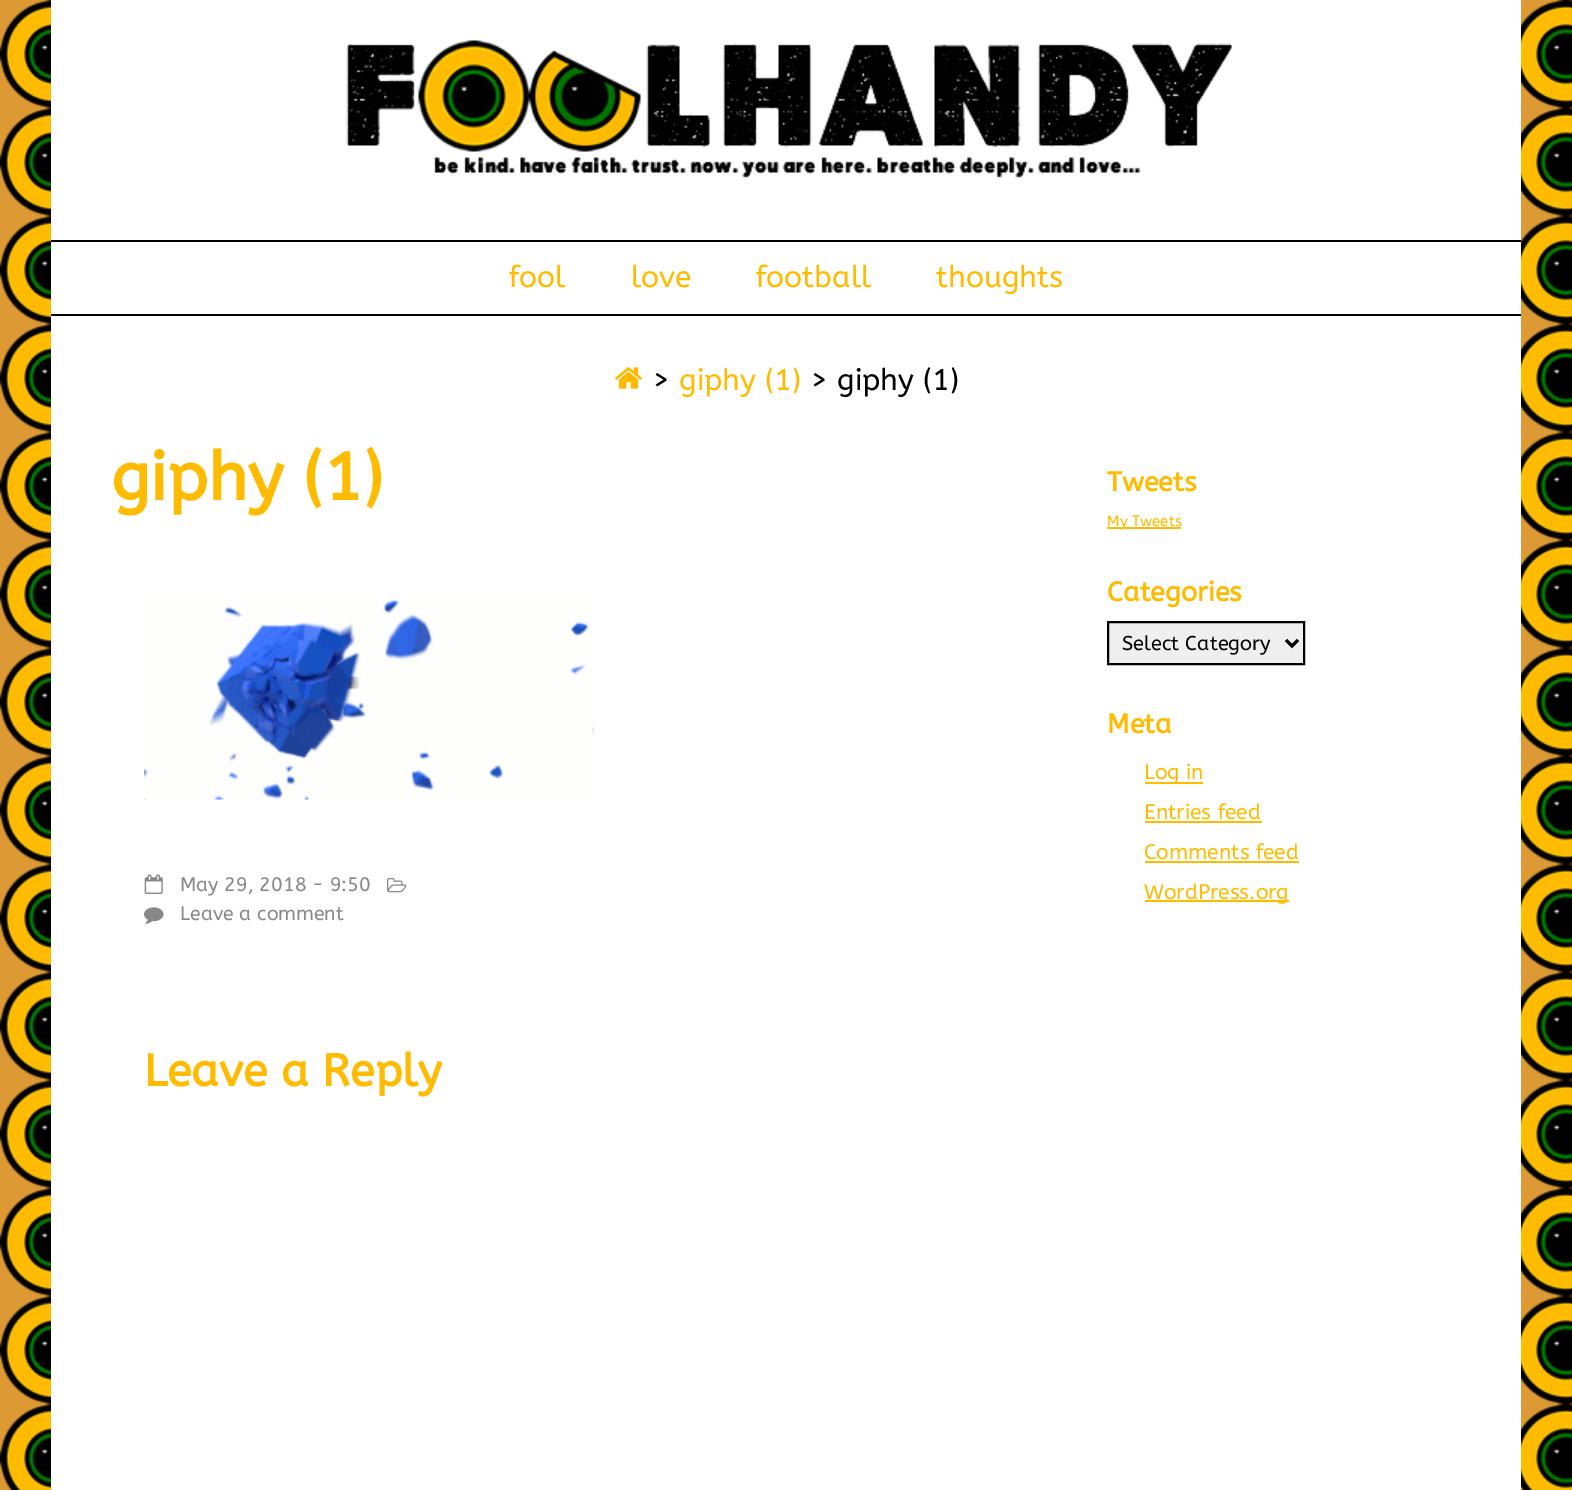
%!PS-Adobe-3.0
%%BoundingBox: 0 0 1572 1490
%%LanguageLevel: 3
%%Pages: 1
%%EndComments
%%BeginProlog
/drawimage { 5 dict begin { /h /w /y /x /name } { exch def } forall
  gsave x y translate w h scale
  w h 8 [w 0 0 h 0 0] name (r) file false 3 colorimage grestore end } def
%%EndProlog
%%BeginSetup
<< /PageSize [1572 1490] >> setpagedevice
%%EndSetup
%%Page: 1 1
0 1490 translate 1 -1 scale
4 setmiterlimit
0.867 0.6 0.2 setrgbcolor
0 0 1572 1490 rectfill
(images/1.raw) 0 0 1572 1490 drawimage
1 setgray
51 0 1470 1490 rectfill
(images/2.raw) 346 40 886 138 drawimage
0 setgray
51 240 1470 2 rectfill
51 314 1470 2 rectfill
(images/3.raw) 615 367 27 22 drawimage
(images/4.raw) 144 599 450 201 drawimage
(images/5.raw) 144 874 19 20 drawimage
(images/6.raw) 387 877 20 16 drawimage
(images/7.raw) 144 907 20 17 drawimage
1 0.733 0 setrgbcolor
1107 527 74 2 rectfill
0.937 setgray
newpath 1108 622 moveto 1304 622 lineto 1304 664 lineto 1108 664 lineto closepath gsave fill grestore
0 setgray
2 setlinewidth
stroke
3 setlinewidth
newpath 1286 640 moveto 1292 646 lineto 1298 640 lineto stroke
1 0.733 0 setrgbcolor
1145 782 58 2 rectfill
1145 821 117 2 rectfill
1145 861 154 2 rectfill
1145 900 144 2 rectfill
/ABeeZee-Regular [30 0 0 -30 0 0] selectfont
509 287 moveto (fool) show
631 287 moveto (love) show
756 287 moveto (football) show
936 287 moveto (thoughts) show
0 setgray
652 390 moveto (>) show
1 0.733 0 setrgbcolor
679 390 moveto (giphy \(1\)) show
0 setgray
810 390 moveto (> giphy \(1\)) show
/ABeeZee-Bold [67 0 0 -67 0 0] selectfont
1 0.733 0 setrgbcolor
111 500 moveto (giphy \(1\)) show
/ABeeZee-Regular [19.5 0 0 -19.5 0 0] selectfont
0.533 setgray
180 891 moveto (May 29, 2018 - 9:50) show
180 920 moveto (Leave a comment) show
/ABeeZee-Bold [45 0 0 -45 0 0] selectfont
1 0.733 0 setrgbcolor
144 1086 moveto (Leave a Reply) show
/ABeeZee-Bold [27 0 0 -27 0 0] selectfont
1107 491 moveto (Tweets) show
/ABeeZee-Regular [15 0 0 -15 0 0] selectfont
1107 526 moveto (My Tweets) show
/ABeeZee-Bold [27 0 0 -27 0 0] selectfont
1107 601 moveto (Categories) show
/ABeeZee-Regular [20 0 0 -20 0 0] selectfont
0 setgray
1122 650 moveto (Select Category) show
/ABeeZee-Bold [27 0 0 -27 0 0] selectfont
1 0.733 0 setrgbcolor
1107 733 moveto (Meta) show
/ABeeZee-Regular [21 0 0 -21 0 0] selectfont
1144 779 moveto (Log in) show
1144 819 moveto (Entries feed) show
1144 859 moveto (Comments feed) show
1144 899 moveto (WordPress.org) show
showpage
%%EOF
